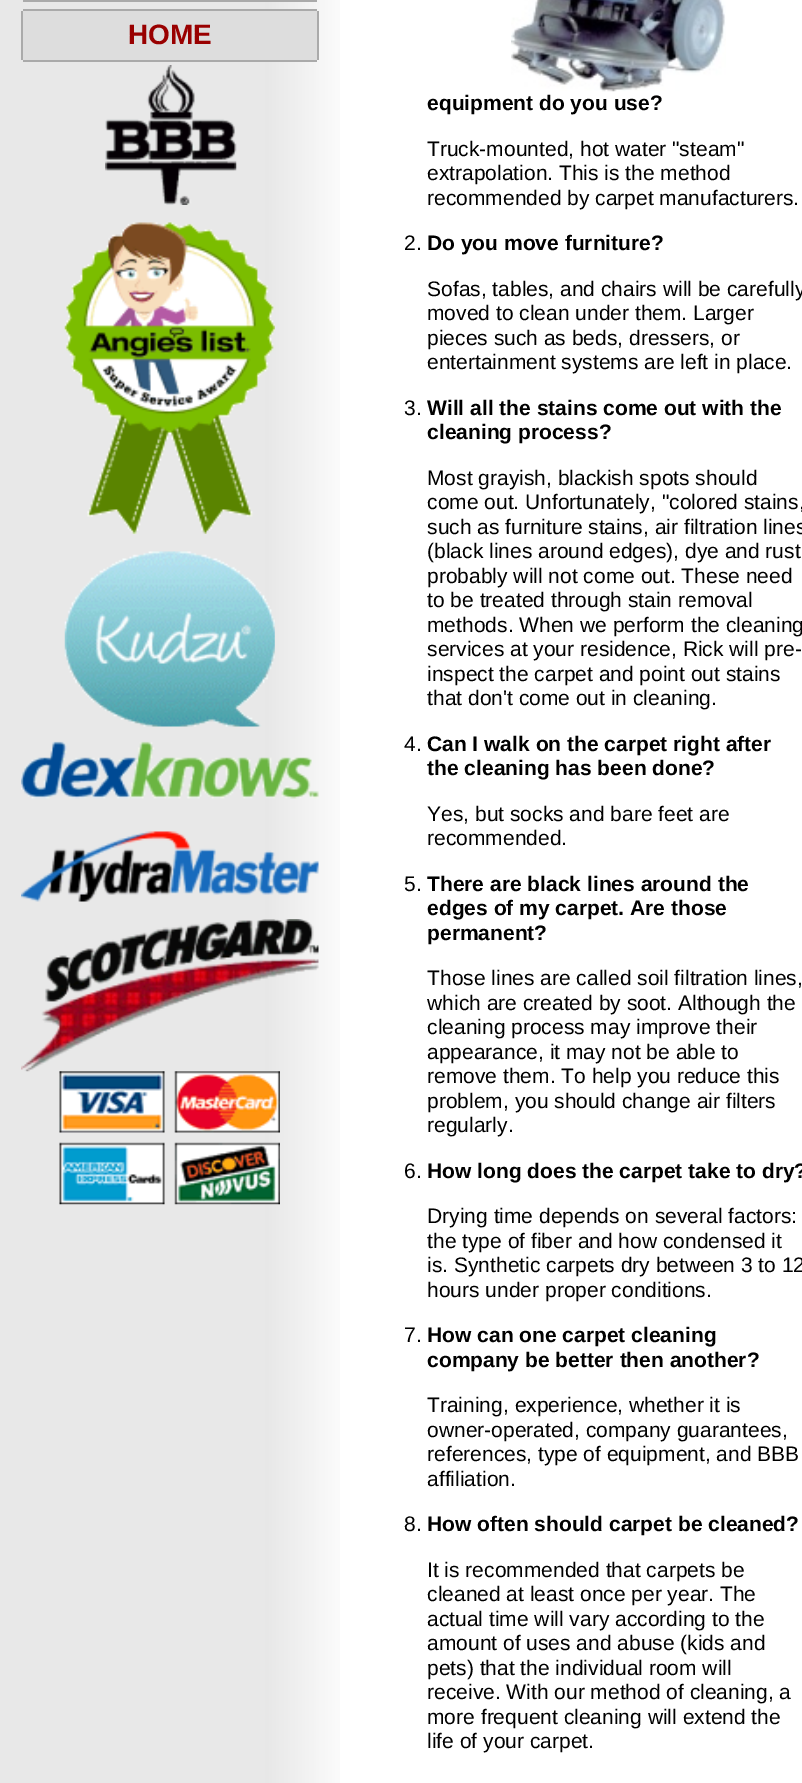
%!PS-Adobe-3.0
%%BoundingBox: 0 0 802 1783
%%LanguageLevel: 3
%%Pages: 1
%%EndComments
%%BeginProlog
/drawimage { 5 dict begin { /h /w /y /x /name } { exch def } forall
  gsave x y translate w h scale
  w h 8 [w 0 0 h 0 0] name (r) file false 3 colorimage grestore end } def
%%EndProlog
%%BeginSetup
<< /PageSize [802 1783] >> setpagedevice
%%EndSetup
%%Page: 1 1
0 1783 translate 1 -1 scale
4 setmiterlimit
1 setgray
0 0 802 1783 rectfill
(images/1.raw) 0 0 340 1783 drawimage
0.667 setgray
23 0 294 2 rectfill
23 9 294 2 rectfill
21 11 2 49 rectfill
0.867 setgray
23 11 294 49 rectfill
0.667 setgray
317 11 2 49 rectfill
23 60 294 2 rectfill
(images/2.raw) 105 65 132 140 drawimage
(images/3.raw) 64 222 211 312 drawimage
(images/4.raw) 64 551 211 176 drawimage
(images/5.raw) 21 741 298 58 drawimage
(images/6.raw) 21 831 298 71 drawimage
(images/7.raw) 21 919 298 153 drawimage
(images/8.raw) 59 1071 221 134 drawimage
(images/9.raw) 511 0 215 92 drawimage
/LiberationSans-Bold [28 0 0 -28 0 0] selectfont
0.6 0 0 setrgbcolor
128 44 moveto (HOME) show
/LiberationSans-Bold [21 0 0 -21 0 0] selectfont
0 setgray
427 110 moveto (equipment do you use?) show
/LiberationSans-Regular [21 0 0 -21 0 0] selectfont
427 156 moveto (Truck-mounted, hot water "steam") show
427 180 moveto (extrapolation. This is the method) show
427 205 moveto (recommended by carpet manufacturers.) show
404 250 moveto (2.) show
/LiberationSans-Bold [21 0 0 -21 0 0] selectfont
427 250 moveto (Do you move furniture?) show
/LiberationSans-Regular [21 0 0 -21 0 0] selectfont
427 296 moveto (Sofas, tables, and chairs will be carefully) show
427 320 moveto (moved to clean under them. Larger) show
427 345 moveto (pieces such as beds, dressers, or) show
427 369 moveto (entertainment systems are left in place.) show
404 415 moveto (3.) show
/LiberationSans-Bold [21 0 0 -21 0 0] selectfont
427 415 moveto (Will all the stains come out with the) show
427 439 moveto (cleaning process?) show
/LiberationSans-Regular [21 0 0 -21 0 0] selectfont
427 485 moveto (Most grayish, blackish spots should) show
427 509 moveto (come out. Unfortunately, "colored stains,) show
427 534 moveto (such as furniture stains, air filtration lines) show
427 558 moveto (\(black lines around edges\), dye and rust) show
427 583 moveto (probably will not come out. These need) show
427 607 moveto (to be treated through stain removal) show
427 632 moveto (methods. When we perform the cleaning) show
427 656 moveto (services at your residence, Rick will pre-) show
427 681 moveto (inspect the carpet and point out stains) show
427 705 moveto (that don't come out in cleaning.) show
404 751 moveto (4.) show
/LiberationSans-Bold [21 0 0 -21 0 0] selectfont
427 751 moveto (Can I walk on the carpet right after) show
427 775 moveto (the cleaning has been done?) show
/LiberationSans-Regular [21 0 0 -21 0 0] selectfont
427 821 moveto (Yes, but socks and bare feet are) show
427 845 moveto (recommended.) show
404 891 moveto (5.) show
/LiberationSans-Bold [21 0 0 -21 0 0] selectfont
427 891 moveto (There are black lines around the) show
427 915 moveto (edges of my carpet. Are those) show
427 940 moveto (permanent?) show
/LiberationSans-Regular [21 0 0 -21 0 0] selectfont
427 985 moveto (Those lines are called soil filtration lines,) show
427 1010 moveto (which are created by soot. Although the) show
427 1034 moveto (cleaning process may improve their) show
427 1059 moveto (appearance, it may not be able to) show
427 1083 moveto (remove them. To help you reduce this) show
427 1108 moveto (problem, you should change air filters) show
427 1132 moveto (regularly.) show
404 1178 moveto (6.) show
/LiberationSans-Bold [21 0 0 -21 0 0] selectfont
427 1178 moveto (How long does the carpet take to dry?) show
/LiberationSans-Regular [21 0 0 -21 0 0] selectfont
427 1223 moveto (Drying time depends on several factors:) show
427 1248 moveto (the type of fiber and how condensed it) show
427 1272 moveto (is. Synthetic carpets dry between 3 to 12) show
427 1297 moveto (hours under proper conditions.) show
404 1342 moveto (7.) show
/LiberationSans-Bold [21 0 0 -21 0 0] selectfont
427 1342 moveto (How can one carpet cleaning) show
427 1367 moveto (company be better then another?) show
/LiberationSans-Regular [21 0 0 -21 0 0] selectfont
427 1412 moveto (Training, experience, whether it is) show
427 1437 moveto (owner-operated, company guarantees,) show
427 1461 moveto (references, type of equipment, and BBB) show
427 1486 moveto (affiliation.) show
404 1531 moveto (8.) show
/LiberationSans-Bold [21 0 0 -21 0 0] selectfont
427 1531 moveto (How often should carpet be cleaned?) show
/LiberationSans-Regular [21 0 0 -21 0 0] selectfont
427 1577 moveto (It is recommended that carpets be) show
427 1601 moveto (cleaned at least once per year. The) show
427 1626 moveto (actual time will vary according to the) show
427 1650 moveto (amount of uses and abuse \(kids and) show
427 1675 moveto (pets\) that the individual room will) show
427 1699 moveto (receive. With our method of cleaning, a) show
427 1724 moveto (more frequent cleaning will extend the) show
427 1748 moveto (life of your carpet.) show
showpage
%%EOF
